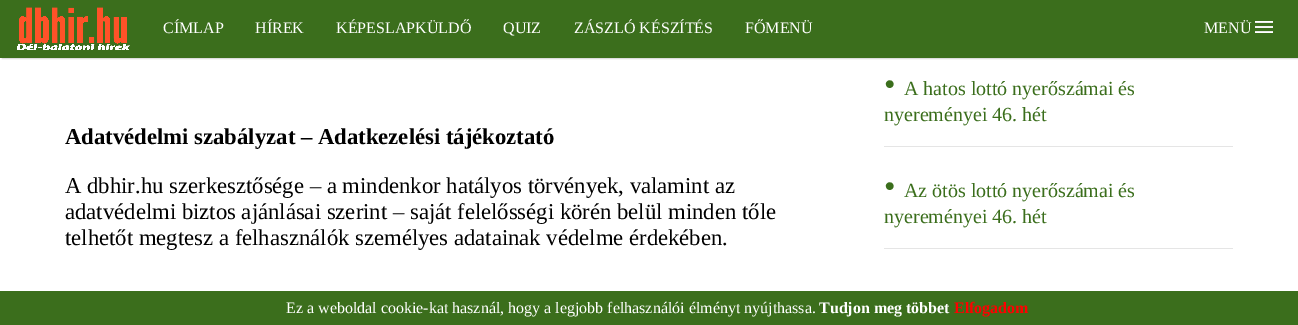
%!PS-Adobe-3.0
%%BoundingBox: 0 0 1298 325
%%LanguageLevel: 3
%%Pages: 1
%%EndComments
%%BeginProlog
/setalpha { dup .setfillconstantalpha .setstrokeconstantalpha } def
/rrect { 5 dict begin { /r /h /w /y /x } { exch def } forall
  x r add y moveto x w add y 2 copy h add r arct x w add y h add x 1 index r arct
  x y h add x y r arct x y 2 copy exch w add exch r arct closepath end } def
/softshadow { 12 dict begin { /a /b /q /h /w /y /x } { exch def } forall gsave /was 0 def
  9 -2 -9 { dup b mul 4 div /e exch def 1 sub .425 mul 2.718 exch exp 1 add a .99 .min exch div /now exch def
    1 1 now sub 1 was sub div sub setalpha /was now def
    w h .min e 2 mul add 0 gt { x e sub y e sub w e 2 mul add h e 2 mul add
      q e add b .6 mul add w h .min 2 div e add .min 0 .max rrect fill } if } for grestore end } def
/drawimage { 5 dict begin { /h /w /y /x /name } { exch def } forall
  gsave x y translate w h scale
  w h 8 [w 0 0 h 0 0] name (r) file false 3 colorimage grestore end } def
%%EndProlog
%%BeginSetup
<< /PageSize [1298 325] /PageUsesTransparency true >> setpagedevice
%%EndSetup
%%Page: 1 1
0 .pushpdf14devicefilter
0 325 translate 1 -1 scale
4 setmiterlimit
1 setgray
0 0 1298 325 rectfill
0 setgray
2 1 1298 58 0 0.5 0.15 softshadow
0.231 0.431 0.11 setrgbcolor
0 0 1298 58 rectfill
(images/1.raw) 17 7 113 43 drawimage
(images/2.raw) 1255 21 18 12 drawimage
0.898 setgray
884 146 349 1 rectfill
884 248 349 1 rectfill
0.231 0.431 0.11 setrgbcolor
0 291 1298 34 rectfill
/LiberationSerif-Regular [16 0 0 -16 0 0] selectfont
1 setgray
163 33 moveto (CÍMLAP) show
255 33 moveto (HÍREK) show
336 33 moveto (KÉPESLAPKÜLDŐ) show
503 33 moveto (QUIZ) show
574 33 moveto (ZÁSZLÓ KÉSZÍTÉS) show
745 33 moveto (FŐMENÜ) show
1204 33 moveto (MENÜ) show
/LiberationSerif-Bold [22.7 0 0 -22.7 0 0] selectfont
0 setgray
65 144 moveto (Adatvédelmi szabályzat – Adatkezelési tájékoztató) show
/LiberationSerif-Regular [22.7 0 0 -22.7 0 0] selectfont
65 193 moveto (A dbhir.hu szerkesztősége – a mindenkor hatályos törvények, valamint az) show
65 219 moveto (adatvédelmi biztos ajánlásai szerint – saját felelősségi körén belül minden tőle) show
65 245 moveto (telhetőt megtesz a felhasználók személyes adatainak védelme érdekében.) show
/LiberationSerif-Regular [33 0 0 -33 0 0] selectfont
0.231 0.431 0.11 setrgbcolor
884 95 moveto (•) show
/LiberationSerif-Regular [20 0 0 -20 0 0] selectfont
904 95 moveto (A hatos lottó nyerőszámai és) show
884 121 moveto (nyereményei 46. hét) show
/LiberationSerif-Regular [33 0 0 -33 0 0] selectfont
884 197 moveto (•) show
/LiberationSerif-Regular [20 0 0 -20 0 0] selectfont
904 197 moveto (Az ötös lottó nyerőszámai és) show
884 223 moveto (nyereményei 46. hét) show
/LiberationSerif-Regular [16 0 0 -16 0 0] selectfont
1 setgray
286 313 moveto (Ez a weboldal cookie-kat használ, hogy a legjobb felhasználói élményt nyújthassa.) show
/LiberationSerif-Bold [16 0 0 -16 0 0] selectfont
819 313 moveto (Tudjon meg többet) show
1 0 0 setrgbcolor
954 313 moveto (Elfogadom) show
.poppdf14devicefilter showpage
%%EOF
